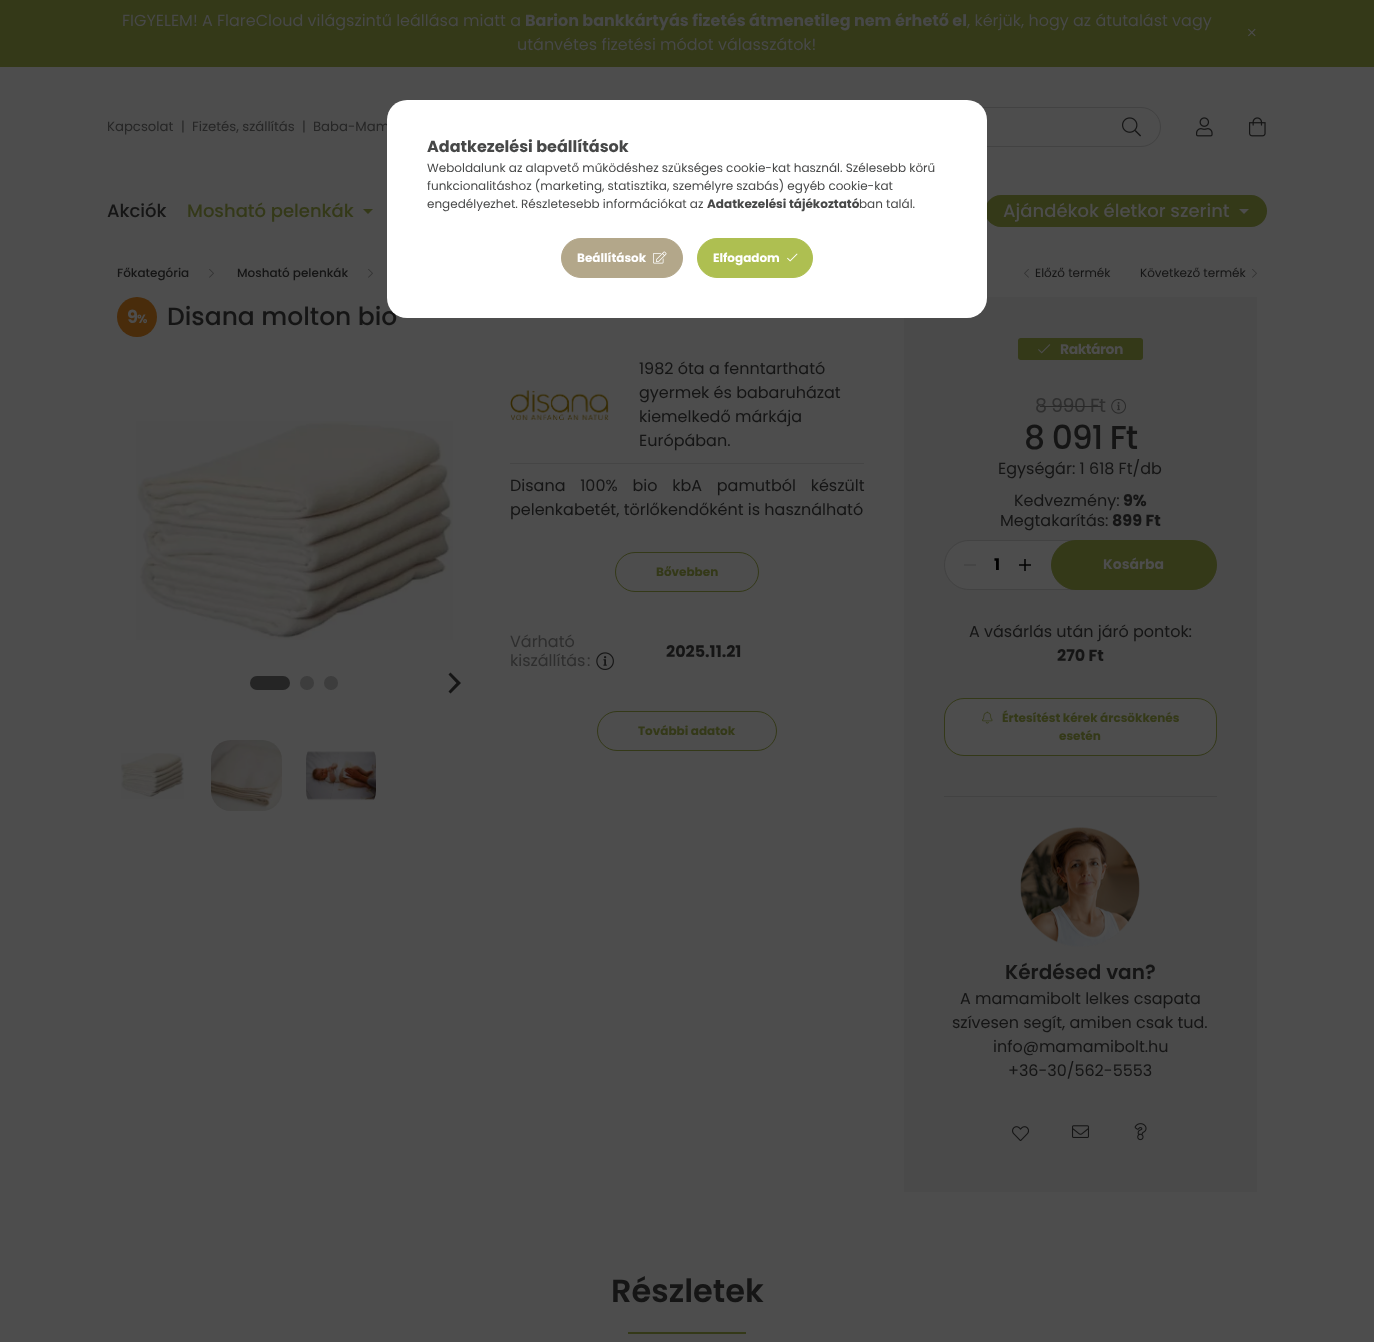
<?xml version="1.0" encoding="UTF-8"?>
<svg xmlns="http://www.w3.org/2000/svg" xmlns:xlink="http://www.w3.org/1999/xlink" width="1374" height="1342">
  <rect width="100%" height="100%" fill="#4d4d4d" />
  <rect width="1374" height="67" fill="#343918" />
  <image x="1248" y="28" width="8" height="9" xlink:href="image1.png" />
  <rect x="861.5" y="107.5" width="299" height="39" rx="19.5" fill="none" stroke="#424242" />
  <image x="1122" y="117" width="19" height="20" xlink:href="image2.png" />
  <image x="1196" y="117" width="17" height="20" xlink:href="image3.png" />
  <image x="1249" y="117" width="17" height="20" xlink:href="image4.png" />
  <path d="M 363 209 h 10 l -5 5 z" fill="#343918" />
  <rect x="985" y="195" width="282" height="32" rx="16" fill="#343918" />
  <path d="M 1239 209 h 10 l -5 5 z" fill="#4d4d4d" />
  <image x="209" y="269" width="5" height="9" xlink:href="image5.png" />
  <image x="368" y="269" width="5" height="9" xlink:href="image5.png" />
  <image x="1024" y="269" width="5" height="9" xlink:href="image6.png" />
  <image x="1252" y="269" width="5" height="9" xlink:href="image5.png" />
  <circle cx="137" cy="317" r="20" fill="#492c0b" />
  <image x="136" y="421" width="317" height="219" xlink:href="image7.png" />
  <rect x="250" y="676" width="40" height="14" rx="7" fill="#252525" />
  <circle cx="307" cy="683" r="7" fill="#3d3d3d" />
  <circle cx="331" cy="683" r="7" fill="#3d3d3d" />
  <path d="M 461 683 l -10.5 -10.5 l -2 2 l 8 8.5 l -8 8.5 l 2 2 z" fill="#151515" />
  <image x="121" y="753" width="63" height="46" xlink:href="image8.png" />
  <image x="211" y="740" width="71" height="71" xlink:href="image9.png" />
  <image x="306" y="751" width="70" height="50" xlink:href="image10.png" />
  <image x="510" y="390" width="99" height="30" xlink:href="image11.png" />
  <rect x="510" y="463" width="354" height="1" fill="#454545" />
  <rect x="615.5" y="552.5" width="143" height="39" rx="19.5" fill="none" stroke="#343918" />
  <image x="596" y="652" width="18" height="18" xlink:href="image12.png" />
  <rect x="597.5" y="711.5" width="179" height="39" rx="19.5" fill="none" stroke="#343918" />
  <rect x="904" y="297" width="353" height="895" fill="#4a4a4a" />
  <rect x="1018" y="338" width="125" height="22" rx="3" fill="#343918" />
  <image x="1038" y="344" width="13" height="10" xlink:href="image13.png" />
  <image x="1111" y="398" width="15" height="16" xlink:href="image14.png" />
  <path d="M 969 540.5 h 111.5 v 49 h -111.5 c -13.5 0 -24.5 -11 -24.5 -24.5 c 0 -13.5 11 -24.5 24.5 -24.5 z" fill="#4d4d4d" stroke="#424242" />
  <rect x="964" y="564" width="12" height="2" fill="#454545" />
  <image x="1019" y="559" width="12" height="12" xlink:href="image15.png" />
  <rect x="1051.5" y="540.5" width="165" height="49" rx="24.5" fill="#343918" stroke="#343918" />
  <rect x="944.5" y="698.5" width="272" height="57" rx="19.5" fill="#4d4d4d" stroke="#343918" />
  <image x="982" y="711" width="11" height="13" xlink:href="image16.png" />
  <rect x="944" y="796" width="273" height="1" fill="#424242" />
  <image x="1020" y="827" width="120" height="120" xlink:href="image17.png" />
  <image x="1012" y="1126" width="17" height="15" xlink:href="image18.png" />
  <image x="1072" y="1125" width="17" height="13" xlink:href="image19.png" />
  <image x="1134" y="1123" width="13" height="18" xlink:href="image20.png" />
  <rect x="628" y="1332" width="118" height="2" fill="#343918" />
  <text x="122" y="26" style="font-family: Poppins; font-size: 16px; fill: #474848">FIGYELEM! A FlareCloud világszintű leállása miatt a</text>
  <text x="525" y="26" style="font-family: Poppins; font-size: 16px; font-weight: bold; fill: #474848">Barion bankkártyás fizetés átmenetileg nem érhető el</text>
  <text x="967" y="26" style="font-family: Poppins; font-size: 16px; fill: #474848">, kérjük, hogy az átutalást vagy</text>
  <text x="517" y="50" style="font-family: Poppins; font-size: 16px; fill: #474848">utánvétes fizetési módot válasszátok!</text>
  <text x="107" y="131" style="font-family: Poppins; font-size: 13.25px; fill: #262626">Kapcsolat</text>
  <text x="181" y="131" style="font-family: Poppins; font-size: 13.25px; fill: #262626">|</text>
  <text x="192" y="131" style="font-family: Poppins; font-size: 13.25px; fill: #262626">Fizetés, szállítás</text>
  <text x="302" y="131" style="font-family: Poppins; font-size: 13.25px; fill: #262626">|</text>
  <text x="313" y="131" style="font-family: Poppins; font-size: 13.25px; fill: #262626">Baba-Mam</text>
  <text x="107" y="217" style="font-family: Poppins; font-size: 18px; font-weight: 500; fill: #151515">Akciók</text>
  <text x="187" y="217" style="font-family: Poppins; font-size: 18px; font-weight: 500; fill: #343918">Mosható pelenkák</text>
  <text x="1003" y="217" style="font-family: Poppins; font-size: 18px; font-weight: 500; fill: #4d4d4d">Ajándékok életkor szerint</text>
  <text x="117" y="277" style="font-family: Poppins; font-size: 12px; font-weight: 500; fill: #151515">Főkategória</text>
  <text x="237" y="277" style="font-family: Poppins; font-size: 12px; font-weight: 500; fill: #151515">Mosható pelenkák</text>
  <text x="1035" y="277" style="font-family: Poppins; font-size: 12px; fill: #151515">Előző termék</text>
  <text x="1140" y="277" style="font-family: Poppins; font-size: 12px; fill: #151515">Következő termék</text>
  <text x="127" y="323" style="font-family: Poppins; font-size: 18px; font-weight: bold; letter-spacing: -0.5px; fill: #4d4d4d">9</text>
  <text x="137" y="323" style="font-family: Poppins; font-size: 12px; font-weight: bold; letter-spacing: -0.5px; fill: #4d4d4d">%</text>
  <text x="167" y="325" style="font-family: Poppins; font-size: 25px; font-weight: 500; fill: #151515">Disana molton bio</text>
  <text x="639" y="374" style="font-family: Poppins; font-size: 16px; fill: #151515">1982 óta a fenntartható</text>
  <text x="639" y="398" style="font-family: Poppins; font-size: 16px; fill: #151515">gyermek és babaruházat</text>
  <text x="639" y="422" style="font-family: Poppins; font-size: 16px; fill: #151515">kiemelkedő márkája</text>
  <text x="639" y="446" style="font-family: Poppins; font-size: 16px; fill: #151515">Európában.</text>
  <text x="510" y="491" word-spacing="10.5" style="font-family: Poppins; font-size: 16px; fill: #151515">Disana 100% bio kbA pamutból készült</text>
  <text x="510" y="515" style="font-family: Poppins; font-size: 16px; fill: #151515">pelenkabetét, törlőkendőként is használható</text>
  <text x="656" y="576" style="font-family: Poppins; font-size: 12px; font-weight: bold; fill: #343918">Bővebben</text>
  <text x="510" y="647" style="font-family: Poppins; font-size: 16px; fill: #2e2e2e">Várható</text>
  <text x="510" y="666" style="font-family: Poppins; font-size: 16px; fill: #2e2e2e">kiszállítás</text>
  <text x="587" y="666" style="font-family: Poppins; font-size: 16px; fill: #2e2e2e">:</text>
  <text x="666" y="657" style="font-family: Poppins; font-size: 16px; font-weight: bold; fill: #151515">2025.11.21</text>
  <text x="638" y="735" style="font-family: Poppins; font-size: 12px; font-weight: bold; fill: #343918">További adatok</text>
  <text x="1060" y="354" style="font-family: Poppins; font-size: 14px; font-weight: bold; letter-spacing: -0.5px; fill: #4d4d4d">Raktáron</text>
  <text x="1035" y="412" style="font-family: Poppins; font-size: 19px; letter-spacing: -0.5px; fill: #2e2e2e">8 990 Ft</text>
  <rect x="1040" y="406" width="61" height="1" fill="#292929" />
  <text x="1024" y="449" style="font-family: Poppins; font-size: 33px; font-weight: 500; letter-spacing: -1px; fill: #151515">8 091 Ft</text>
  <text x="998" y="474" style="font-family: Poppins; font-size: 16px; fill: #151515">Egységár: 1 618 Ft/db</text>
  <text x="1014" y="506" style="font-family: Poppins; font-size: 16px; fill: #151515">Kedvezmény:</text>
  <text x="1123" y="506" style="font-family: Poppins; font-size: 16px; font-weight: bold; fill: #151515">9%</text>
  <text x="1000" y="526" style="font-family: Poppins; font-size: 16px; fill: #151515">Megtakarítás:</text>
  <text x="1112" y="526" style="font-family: Poppins; font-size: 16px; font-weight: bold; fill: #151515">899 Ft</text>
  <text x="994" y="570" style="font-family: Poppins; font-size: 16px; font-weight: bold; fill: #000000">1</text>
  <text x="1103" y="569" style="font-family: Poppins; font-size: 14px; font-weight: bold; fill: #4d4d4d">Kosárba</text>
  <text x="969" y="637" style="font-family: Poppins; font-size: 16px; fill: #151515">A vásárlás után járó pontok:</text>
  <text x="1057" y="661" style="font-family: Poppins; font-size: 16px; font-weight: bold; fill: #151515">270 Ft</text>
  <text x="1002" y="722" style="font-family: Poppins; font-size: 12px; font-weight: bold; fill: #343918">Értesítést kérek árcsökkenés</text>
  <text x="1059" y="740" style="font-family: Poppins; font-size: 12px; font-weight: bold; fill: #343918">esetén</text>
  <text x="1005" y="979" style="font-family: Poppins; font-size: 20px; font-weight: 600; fill: #151515">Kérdésed van?</text>
  <text x="960" y="1004" style="font-family: Poppins; font-size: 16px; fill: #151515">A mamamibolt lelkes csapata</text>
  <text x="952" y="1028" style="font-family: Poppins; font-size: 16px; fill: #151515">szívesen segít, amiben csak tud.</text>
  <text x="993" y="1052" style="font-family: Poppins; font-size: 16px; fill: #151515">info@mamamibolt.hu</text>
  <text x="1008" y="1076" style="font-family: Poppins; font-size: 16px; fill: #151515">+36-30/562-5553</text>
  <text x="611" y="1302" style="font-family: Poppins; font-size: 32px; font-weight: 600; fill: #151515">Részletek</text>
  <rect x="387" y="100" width="600" height="218" rx="20" fill="#ffffff" />
  <text x="427" y="152" style="font-family: Poppins; font-size: 16px; font-weight: bold; fill: #474848">Adatkezelési beállítások</text>
  <text x="427" y="172" style="font-family: Poppins; font-size: 12px; fill: #474848">Weboldalunk az alapvető működéshez szükséges cookie-kat használ. Szélesebb körű</text>
  <text x="427" y="190" style="font-family: Poppins; font-size: 12px; fill: #474848">funkcionalitáshoz (marketing, statisztika, személyre szabás) egyéb cookie-kat</text>
  <text x="427" y="208" style="font-family: Poppins; font-size: 12px; fill: #474848">engedélyezhet. Részletesebb információkat az</text>
  <text x="707" y="208" style="font-family: Poppins; font-size: 12px; font-weight: bold; fill: #474848">Adatkezelési tájékoztató</text>
  <text x="859" y="208" style="font-family: Poppins; font-size: 12px; fill: #474848">ban talál.</text>
  <rect x="561.5" y="238.5" width="121" height="39" rx="19.5" fill="#b3a78a" stroke="#b3a78a" />
  <text x="577" y="262" style="font-family: Poppins; font-size: 12px; font-weight: bold; fill: #ffffff">Beállítások</text>
  <image x="653" y="251" width="14" height="13" xlink:href="image21.png" />
  <rect x="697.5" y="238.5" width="115" height="39" rx="19.5" fill="#aebf51" stroke="#aebf51" />
  <text x="713" y="262" style="font-family: Poppins; font-size: 12px; font-weight: bold; fill: #ffffff">Elfogadom</text>
  <image x="787" y="253" width="11" height="9" xlink:href="image22.png" />
</svg>
